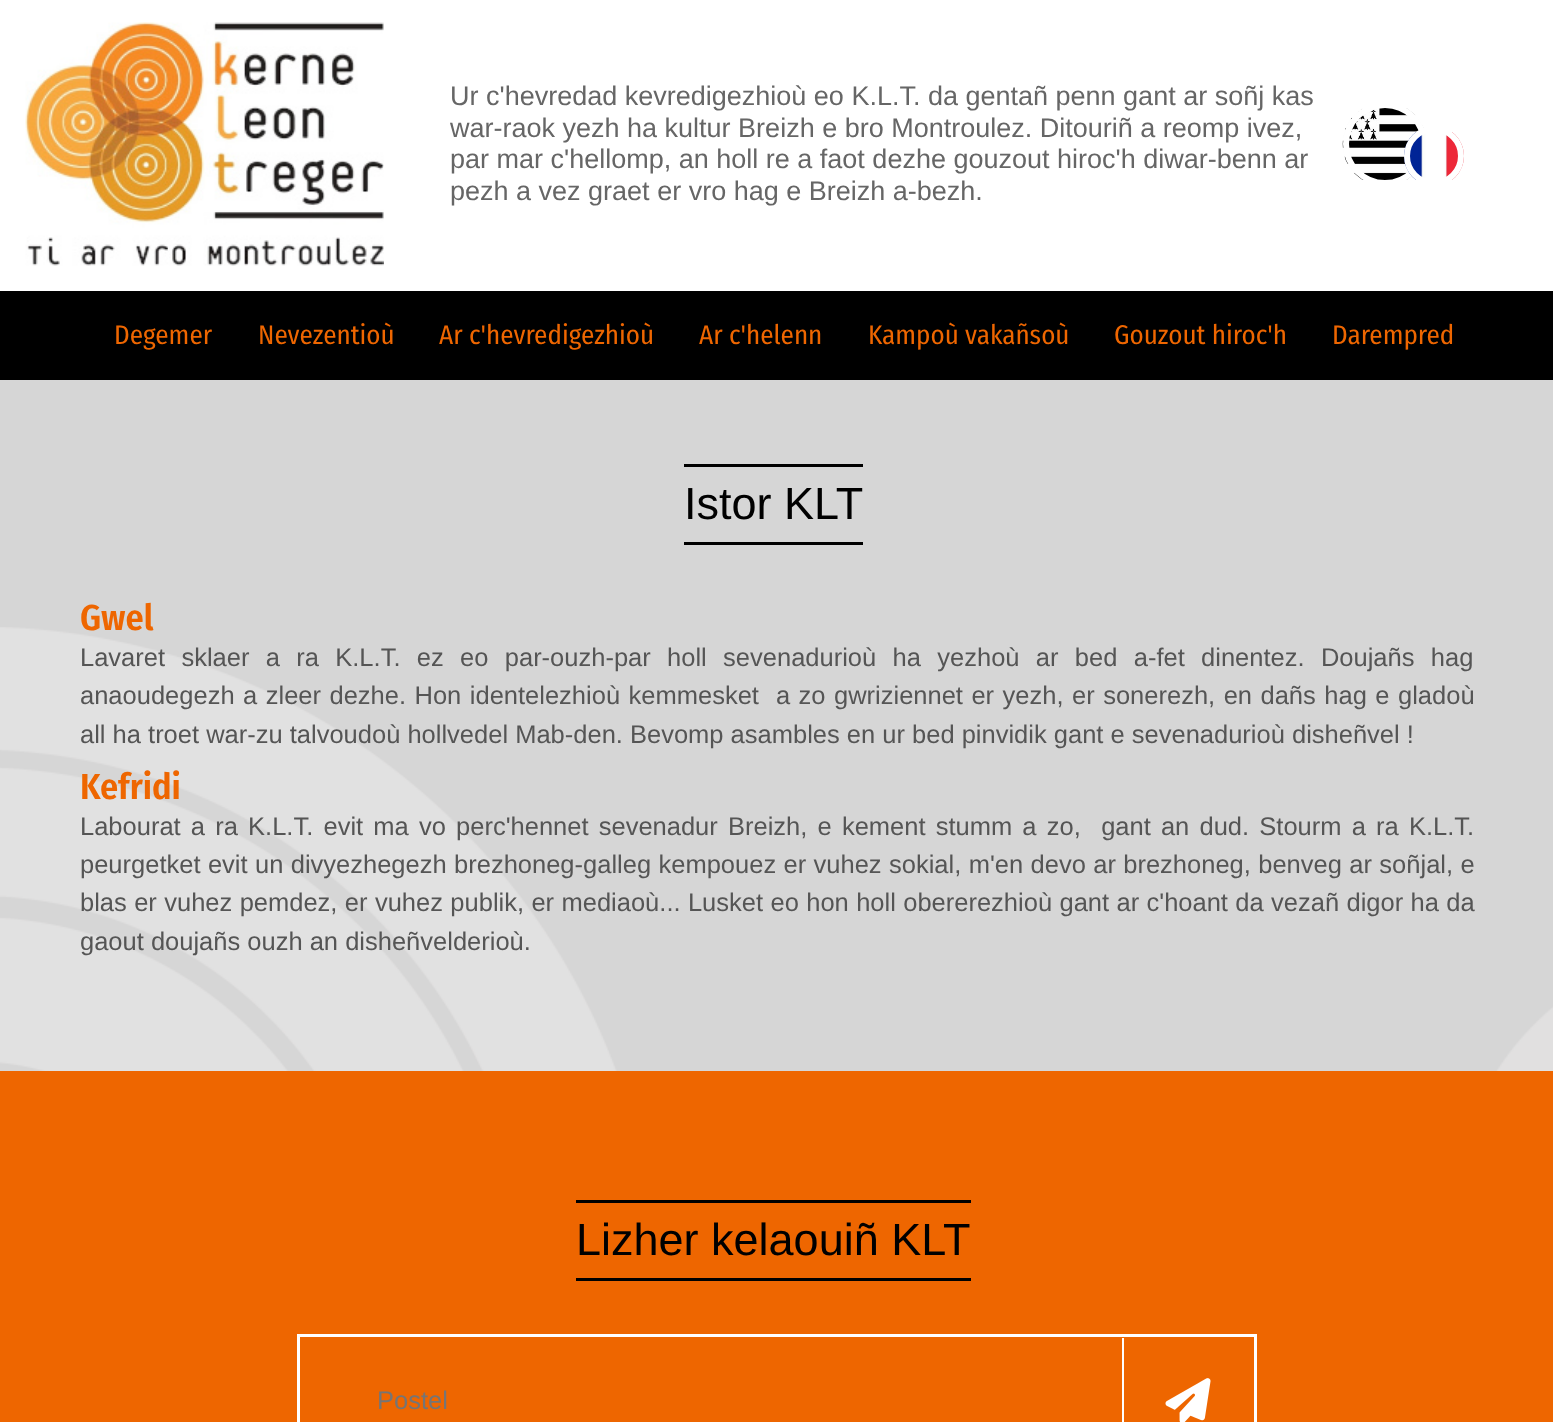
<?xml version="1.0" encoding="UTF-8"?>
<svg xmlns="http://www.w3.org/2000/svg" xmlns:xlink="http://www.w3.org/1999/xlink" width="1553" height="1422">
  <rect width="100%" height="100%" fill="#d6d6d6" />
  <image x="0" y="627" width="1553" height="444" xlink:href="image1.png" />
  <rect width="1553" height="291" fill="#ffffff" />
  <image x="25" y="22" width="359" height="244" xlink:href="image2.png" />
  <image x="1342" y="108" width="82" height="72" xlink:href="image3.png" />
  <circle cx="1385" cy="144" r="39" fill="none" stroke="#ffffff" stroke-width="6" />
  <image x="1404" y="132" width="60" height="48" xlink:href="image4.png" />
  <circle cx="1434" cy="156" r="27" fill="none" stroke="#ffffff" stroke-width="6" />
  <rect y="291" width="1553" height="89" fill="#000000" />
  <rect x="684" y="464" width="179" height="3" fill="#000000" />
  <rect x="684" y="542" width="179" height="3" fill="#000000" />
  <rect y="1071" width="1553" height="351" fill="#ee6600" />
  <rect x="576" y="1200" width="395" height="3" fill="#000000" />
  <rect x="576" y="1278" width="395" height="3" fill="#000000" />
  <rect x="298.5" y="1335.5" width="957" height="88" fill="none" stroke="#ffffff" stroke-width="3" />
  <rect x="1122" y="1338" width="2" height="84" fill="#ffffff" />
  <image x="1165" y="1378" width="46" height="44" xlink:href="image5.png" />
  <text x="450" y="105" style="font-family: Liberation Sans; font-size: 27px; fill: #666666">Ur c'hevredad kevredigezhioù eo K.L.T. da gentañ penn gant ar soñj kas</text>
  <text x="450" y="137" style="font-family: Liberation Sans; font-size: 27px; fill: #666666">war-raok yezh ha kultur Breizh e bro Montroulez. Ditouriñ a reomp ivez,</text>
  <text x="450" y="168" style="font-family: Liberation Sans; font-size: 27px; fill: #666666">par mar c'hellomp, an holl re a faot dezhe gouzout hiroc'h diwar-benn ar</text>
  <text x="450" y="200" style="font-family: Liberation Sans; font-size: 27px; fill: #666666">pezh a vez graet er vro hag e Breizh a-bezh.</text>
  <text x="114" y="344" style="font-family: Fira Sans Condensed; font-size: 27px; fill: #ee6600">Degemer</text>
  <text x="258" y="344" style="font-family: Fira Sans Condensed; font-size: 27px; fill: #ee6600">Nevezentioù</text>
  <text x="439" y="344" style="font-family: Fira Sans Condensed; font-size: 27px; fill: #ee6600">Ar c'hevredigezhioù</text>
  <text x="699" y="344" style="font-family: Fira Sans Condensed; font-size: 27px; fill: #ee6600">Ar c'helenn</text>
  <text x="868" y="344" style="font-family: Fira Sans Condensed; font-size: 27px; fill: #ee6600">Kampoù vakañsoù</text>
  <text x="1114" y="344" style="font-family: Fira Sans Condensed; font-size: 27px; fill: #ee6600">Gouzout hiroc'h</text>
  <text x="1332" y="344" style="font-family: Fira Sans Condensed; font-size: 27px; fill: #ee6600">Darempred</text>
  <text x="684" y="519" style="font-family: Liberation Sans; font-size: 45px; fill: #000000">Istor KLT</text>
  <text x="80" y="630" style="font-family: Fira Sans Condensed; font-size: 36px; font-weight: 600; fill: #ee6600">Gwel</text>
  <text x="80" y="666" word-spacing="9.25" style="font-family: Liberation Sans; font-size: 25.5px; fill: #555555">Lavaret sklaer a ra K.L.T. ez eo par-ouzh-par holl sevenadurioù ha yezhoù ar bed a-fet dinentez. Doujañs hag</text>
  <text x="80" y="704" word-spacing="1.4" style="font-family: Liberation Sans; font-size: 25.5px; fill: #555555" xml:space="preserve">anaoudegezh a zleer dezhe. Hon identelezhioù kemmesket  a zo gwriziennet er yezh, er sonerezh, en dañs hag e gladoù</text>
  <text x="80" y="743" style="font-family: Liberation Sans; font-size: 25.5px; fill: #555555">all ha troet war-zu talvoudoù hollvedel Mab-den. Bevomp asambles en ur bed pinvidik gant e sevenadurioù disheñvel !</text>
  <text x="80" y="799" style="font-family: Fira Sans Condensed; font-size: 36px; font-weight: 600; fill: #ee6600">Kefridi</text>
  <text x="80" y="835" word-spacing="3.1" style="font-family: Liberation Sans; font-size: 25.5px; fill: #555555" xml:space="preserve">Labourat a ra K.L.T. evit ma vo perc'hennet sevenadur Breizh, e kement stumm a zo,  gant an dud. Stourm a ra K.L.T.</text>
  <text x="80" y="873" word-spacing="0.3" style="font-family: Liberation Sans; font-size: 25.5px; fill: #555555">peurgetket evit un divyezhegezh brezhoneg-galleg kempouez er vuhez sokial, m'en devo ar brezhoneg, benveg ar soñjal, e</text>
  <text x="80" y="911" word-spacing="0.3" style="font-family: Liberation Sans; font-size: 25.5px; fill: #555555">blas er vuhez pemdez, er vuhez publik, er mediaoù... Lusket eo hon holl obererezhioù gant ar c'hoant da vezañ digor ha da</text>
  <text x="80" y="950" style="font-family: Liberation Sans; font-size: 25.5px; fill: #555555">gaout doujañs ouzh an disheñvelderioù.</text>
  <text x="576" y="1255" style="font-family: Liberation Sans; font-size: 45px; fill: #000000">Lizher kelaouiñ KLT</text>
  <text x="377" y="1409" style="font-family: Liberation Sans; font-size: 25.5px; fill: #757575">Postel</text>
</svg>
